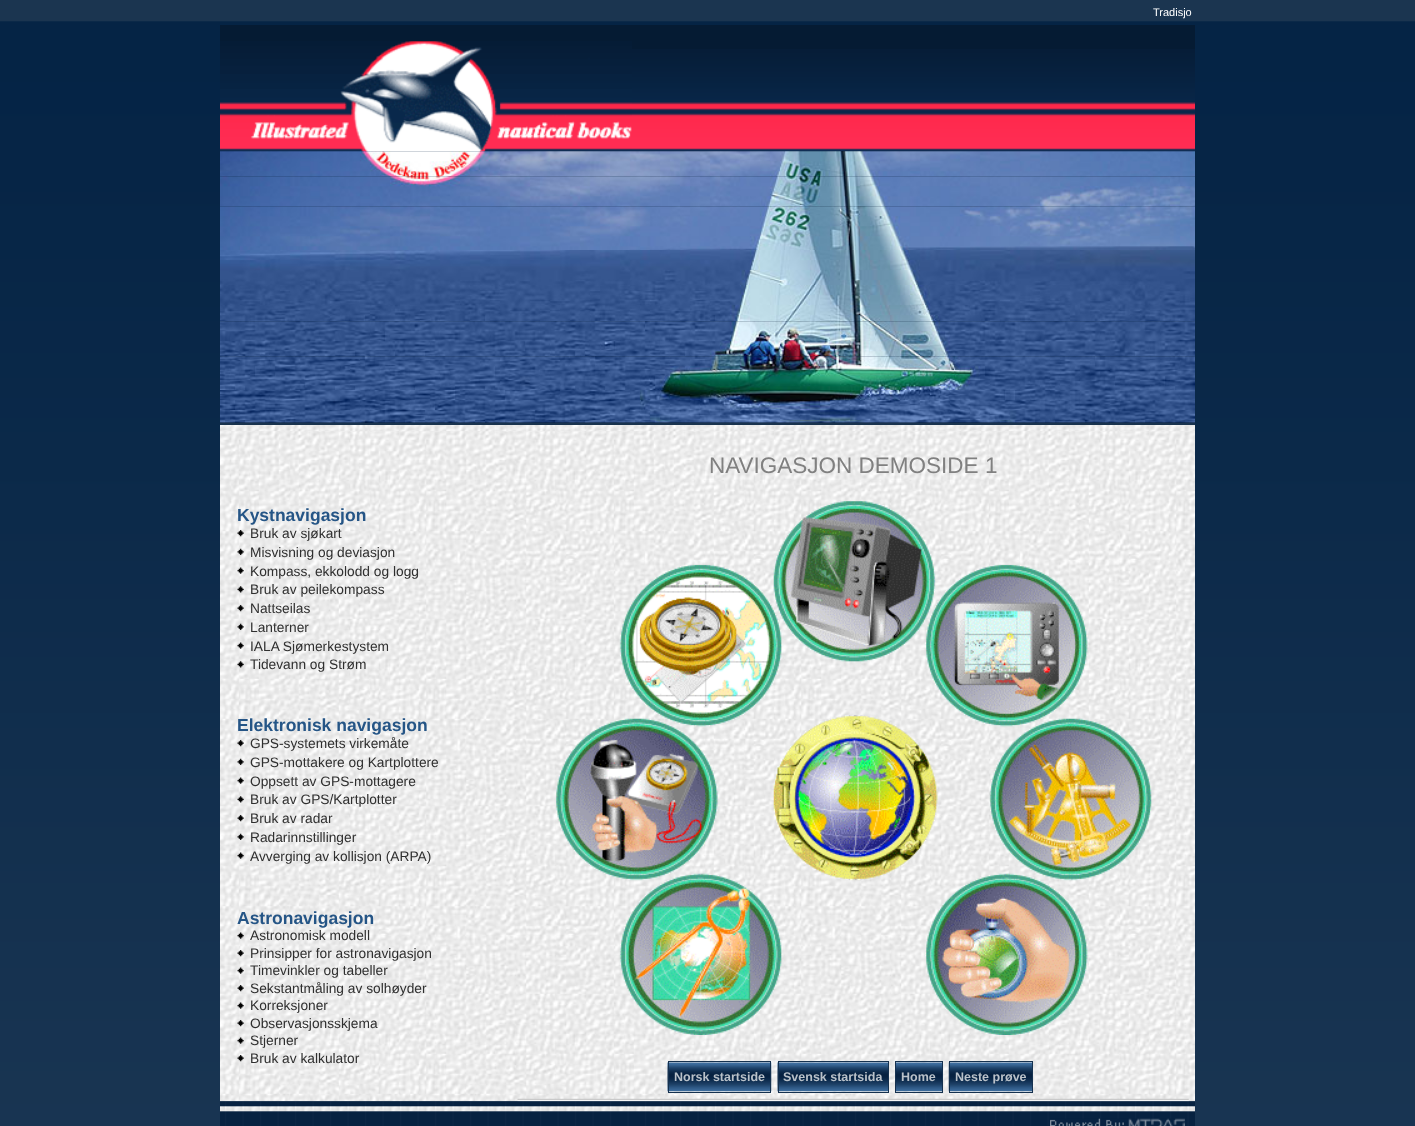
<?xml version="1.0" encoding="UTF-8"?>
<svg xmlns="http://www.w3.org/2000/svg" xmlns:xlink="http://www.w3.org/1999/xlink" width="1415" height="1126">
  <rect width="100%" height="100%" fill="#ffffff" />
  <image x="0" y="0" width="1415" height="1126" xlink:href="image1.png" />
  <rect x="220" y="25" width="975" height="398" fill="#051b33" />
  <image x="220" y="431" width="975" height="671" xlink:href="image2.png" />
  <image x="220" y="49" width="975" height="103" xlink:href="image3.png" />
  <image x="220" y="41" width="412" height="111" xlink:href="image4.png" />
  <image x="220" y="151" width="975" height="26" xlink:href="image5.png" />
  <image x="220" y="176" width="975" height="31" xlink:href="image6.png" />
  <image x="220" y="206" width="975" height="44" xlink:href="image7.png" />
  <image x="220" y="250" width="975" height="35" xlink:href="image8.png" />
  <image x="220" y="285" width="975" height="37" xlink:href="image9.png" />
  <image x="220" y="321" width="975" height="36" xlink:href="image10.png" />
  <image x="220" y="356" width="975" height="34" xlink:href="image11.png" />
  <image x="220" y="390" width="975" height="33" xlink:href="image12.png" />
  <rect x="220" y="423" width="975" height="2" fill="#19334e" />
  <image x="220" y="425" width="975" height="7" xlink:href="image13.png" />
  <image x="220" y="431" width="975" height="671" xlink:href="image14.png" />
  <image x="237" y="530" width="7" height="7" xlink:href="image15.png" />
  <image x="237" y="548" width="7" height="7" xlink:href="image16.png" />
  <image x="237" y="567" width="7" height="7" xlink:href="image17.png" />
  <image x="237" y="586" width="7" height="7" xlink:href="image18.png" />
  <image x="237" y="605" width="7" height="7" xlink:href="image19.png" />
  <image x="237" y="623" width="7" height="7" xlink:href="image20.png" />
  <image x="237" y="642" width="7" height="7" xlink:href="image21.png" />
  <image x="237" y="661" width="7" height="7" xlink:href="image22.png" />
  <image x="237" y="740" width="7" height="7" xlink:href="image23.png" />
  <image x="237" y="758" width="7" height="7" xlink:href="image24.png" />
  <image x="237" y="777" width="7" height="7" xlink:href="image25.png" />
  <image x="237" y="796" width="7" height="7" xlink:href="image26.png" />
  <image x="237" y="815" width="7" height="7" xlink:href="image27.png" />
  <image x="237" y="833" width="7" height="7" xlink:href="image28.png" />
  <image x="237" y="852" width="7" height="7" xlink:href="image29.png" />
  <image x="237" y="932" width="7" height="7" xlink:href="image30.png" />
  <image x="237" y="950" width="7" height="7" xlink:href="image31.png" />
  <image x="237" y="967" width="7" height="7" xlink:href="image32.png" />
  <image x="237" y="985" width="7" height="7" xlink:href="image33.png" />
  <image x="237" y="1002" width="7" height="7" xlink:href="image34.png" />
  <image x="237" y="1020" width="7" height="7" xlink:href="image35.png" />
  <image x="237" y="1037" width="7" height="7" xlink:href="image36.png" />
  <image x="237" y="1055" width="7" height="7" xlink:href="image37.png" />
  <image x="556" y="501" width="596" height="534" xlink:href="image38.png" />
  <image x="667" y="1062" width="105" height="30" xlink:href="image39.png" />
  <rect x="668.5" y="1061.5" width="102" height="31" fill="none" stroke="#15314f" />
  <image x="777" y="1062" width="111" height="30" xlink:href="image40.png" />
  <rect x="778.5" y="1061.5" width="110" height="31" fill="none" stroke="#15314f" />
  <image x="896" y="1062" width="46" height="30" xlink:href="image41.png" />
  <rect x="895.5" y="1061.5" width="47" height="31" fill="none" stroke="#15314f" />
  <image x="948" y="1062" width="84" height="30" xlink:href="image42.png" />
  <rect x="949.5" y="1061.5" width="83" height="31" fill="none" stroke="#15314f" />
  <image x="517" y="1098" width="672" height="4" xlink:href="image43.png" />
  <image x="220" y="1101" width="975" height="25" xlink:href="image44.png" />
  <image x="1050" y="1118" width="135" height="8" xlink:href="image45.png" />
  <text x="1153" y="16" style="font-family: Liberation Sans; font-size: 11px; fill: #ffffff">Tradisjo</text>
  <text x="237" y="521" style="font-family: Liberation Sans; font-size: 17.5px; font-weight: bold; fill: #255586">Kystnavigasjon</text>
  <text x="250" y="538" style="font-family: Liberation Sans; font-size: 13.75px; fill: #2f2f2f">Bruk av sjøkart</text>
  <text x="250" y="557" style="font-family: Liberation Sans; font-size: 13.75px; fill: #2f2f2f">Misvisning og deviasjon</text>
  <text x="250" y="576" style="font-family: Liberation Sans; font-size: 13.75px; fill: #2f2f2f">Kompass, ekkolodd og logg</text>
  <text x="250" y="594" style="font-family: Liberation Sans; font-size: 13.75px; fill: #2f2f2f">Bruk av peilekompass</text>
  <text x="250" y="613" style="font-family: Liberation Sans; font-size: 13.75px; fill: #2f2f2f">Nattseilas</text>
  <text x="250" y="632" style="font-family: Liberation Sans; font-size: 13.75px; fill: #2f2f2f">Lanterner</text>
  <text x="250" y="651" style="font-family: Liberation Sans; font-size: 13.75px; fill: #2f2f2f">IALA Sjømerkestystem</text>
  <text x="250" y="669" style="font-family: Liberation Sans; font-size: 13.75px; fill: #2f2f2f">Tidevann og Strøm</text>
  <text x="237" y="731" style="font-family: Liberation Sans; font-size: 17.5px; font-weight: bold; fill: #255586">Elektronisk navigasjon</text>
  <text x="250" y="748" style="font-family: Liberation Sans; font-size: 13.75px; fill: #2f2f2f">GPS-systemets virkemåte</text>
  <text x="250" y="767" style="font-family: Liberation Sans; font-size: 13.75px; fill: #2f2f2f">GPS-mottakere og Kartplottere</text>
  <text x="250" y="786" style="font-family: Liberation Sans; font-size: 13.75px; fill: #2f2f2f">Oppsett av GPS-mottagere</text>
  <text x="250" y="804" style="font-family: Liberation Sans; font-size: 13.75px; fill: #2f2f2f">Bruk av GPS/Kartplotter</text>
  <text x="250" y="823" style="font-family: Liberation Sans; font-size: 13.75px; fill: #2f2f2f">Bruk av radar</text>
  <text x="250" y="842" style="font-family: Liberation Sans; font-size: 13.75px; fill: #2f2f2f">Radarinnstillinger</text>
  <text x="250" y="861" style="font-family: Liberation Sans; font-size: 13.75px; fill: #2f2f2f">Avverging av kollisjon (ARPA)</text>
  <text x="237" y="924" style="font-family: Liberation Sans; font-size: 17.5px; font-weight: bold; fill: #255586">Astronavigasjon</text>
  <text x="250" y="940" style="font-family: Liberation Sans; font-size: 13.75px; fill: #2f2f2f">Astronomisk modell</text>
  <text x="250" y="958" style="font-family: Liberation Sans; font-size: 13.75px; fill: #2f2f2f">Prinsipper for astronavigasjon</text>
  <text x="250" y="975" style="font-family: Liberation Sans; font-size: 13.75px; fill: #2f2f2f">Timevinkler og tabeller</text>
  <text x="250" y="993" style="font-family: Liberation Sans; font-size: 13.75px; fill: #2f2f2f">Sekstantmåling av solhøyder</text>
  <text x="250" y="1010" style="font-family: Liberation Sans; font-size: 13.75px; fill: #2f2f2f">Korreksjoner</text>
  <text x="250" y="1028" style="font-family: Liberation Sans; font-size: 13.75px; fill: #2f2f2f">Observasjonsskjema</text>
  <text x="250" y="1045" style="font-family: Liberation Sans; font-size: 13.75px; fill: #2f2f2f">Stjerner</text>
  <text x="250" y="1063" style="font-family: Liberation Sans; font-size: 13.75px; fill: #2f2f2f">Bruk av kalkulator</text>
  <text x="709" y="473" style="font-family: Liberation Sans; font-size: 22.5px; fill: #808080">NAVIGASJON DEMOSIDE 1</text>
  <text x="674" y="1081" style="font-family: Liberation Sans; font-size: 12.5px; font-weight: bold; fill: #bac2ca">Norsk startside</text>
  <text x="783" y="1081" style="font-family: Liberation Sans; font-size: 12.5px; font-weight: bold; fill: #bac2ca">Svensk startsida</text>
  <text x="901" y="1081" style="font-family: Liberation Sans; font-size: 12.5px; font-weight: bold; fill: #bac2ca">Home</text>
  <text x="955" y="1081" style="font-family: Liberation Sans; font-size: 12.5px; font-weight: bold; fill: #bac2ca">Neste prøve</text>
</svg>
